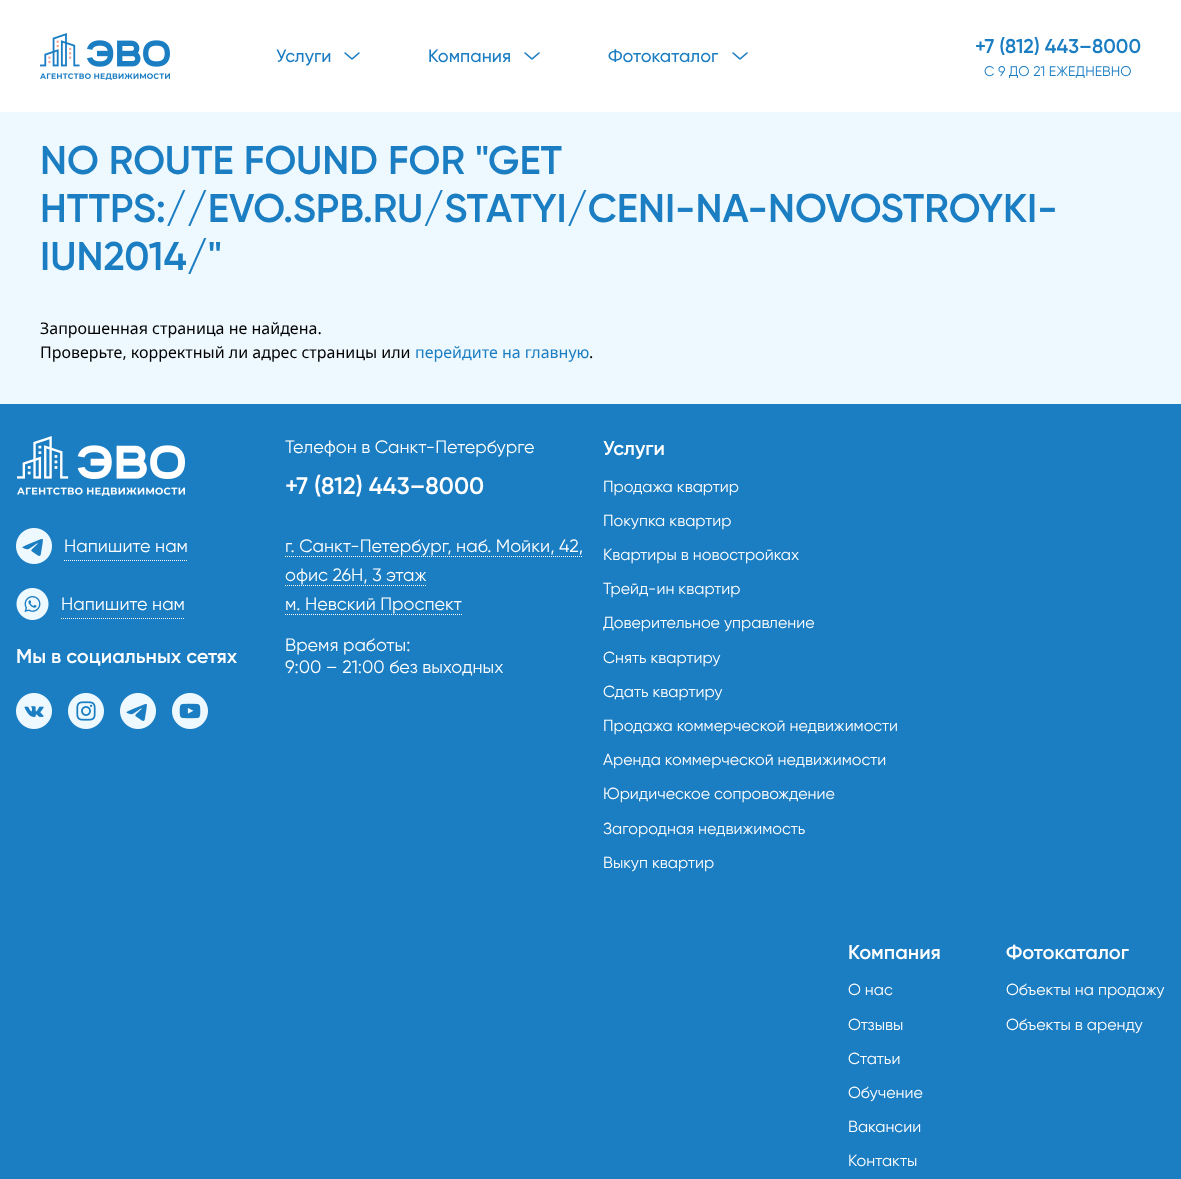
<?xml version="1.0" encoding="UTF-8"?>
<svg xmlns="http://www.w3.org/2000/svg" xmlns:xlink="http://www.w3.org/1999/xlink" width="1181" height="1179">
  <rect width="100%" height="100%" fill="#eef9ff" />
  <rect width="1181" height="112" fill="#ffffff" />
  <image x="40" y="33" width="130" height="47" xlink:href="image1.png" />
  <image x="344" y="52" width="16" height="8" xlink:href="image2.png" />
  <image x="524" y="52" width="16" height="8" xlink:href="image2.png" />
  <image x="732" y="52" width="16" height="8" xlink:href="image2.png" />
  <rect y="404" width="1181" height="775" fill="#1b7dc2" />
  <image x="17" y="436" width="168" height="60" xlink:href="image3.png" />
  <image x="16" y="528" width="36" height="36" xlink:href="image4.png" />
  <path d="M 64 560.5 h 124" fill="none" stroke="#ffffff" stroke-dasharray="1 1" />
  <image x="16" y="588" width="33" height="32" xlink:href="image5.png" />
  <path d="M 61 618.5 h 124" fill="none" stroke="#ffffff" stroke-dasharray="1 1" />
  <image x="16" y="693" width="36" height="36" xlink:href="image6.png" />
  <image x="68" y="693" width="36" height="36" xlink:href="image7.png" />
  <image x="120" y="693" width="36" height="36" xlink:href="image4.png" />
  <image x="172" y="693" width="36" height="36" xlink:href="image8.png" />
  <path d="M 285 556.5 h 298" fill="none" stroke="#ffffff" stroke-dasharray="1 1" />
  <path d="M 285 585.5 h 142" fill="none" stroke="#ffffff" stroke-dasharray="1 1" />
  <path d="M 285 614.5 h 177" fill="none" stroke="#ffffff" stroke-dasharray="1 1" />
  <text x="276" y="62" style="font-family: Gilroy; font-size: 18px; font-weight: 500; fill: #1b7dc2">Услуги</text>
  <text x="428" y="62" style="font-family: Gilroy; font-size: 18px; font-weight: 500; fill: #1b7dc2">Компания</text>
  <text x="608" y="62" style="font-family: Gilroy; font-size: 18px; font-weight: 500; fill: #1b7dc2">Фотокаталог</text>
  <text x="975" y="53" style="font-family: Gilroy; font-size: 20px; font-weight: 600; fill: #1b7dc2">+7 (812) 443–8000</text>
  <text x="984" y="76" style="font-family: Gilroy; font-size: 14px; fill: #1b7dc2">С 9 ДО 21 ЕЖЕДНЕВНО</text>
  <text x="40" y="174" style="font-family: Gilroy; font-size: 40px; font-weight: 600; fill: #1b7dc2">NO ROUTE FOUND FOR "GET</text>
  <text x="40" y="222" style="font-family: Gilroy; font-size: 40px; font-weight: 600; fill: #1b7dc2">HTTPS://EVO.SPB.RU/STATYI/CENI-NA-NOVOSTROYKI-</text>
  <text x="40" y="270" style="font-family: Gilroy; font-size: 40px; font-weight: 600; fill: #1b7dc2">IUN2014/"</text>
  <text x="40" y="334" style="font-family: Noto Sans; font-size: 16px; fill: #000000">Запрошенная страница не найдена.</text>
  <text x="40" y="358" style="font-family: Noto Sans; font-size: 16px; fill: #000000">Проверьте, корректный ли адрес страницы или</text>
  <text x="415" y="358" style="font-family: Noto Sans; font-size: 16px; fill: #1b7dc2">перейдите на главную</text>
  <text x="589" y="358" style="font-family: Noto Sans; font-size: 16px; fill: #000000">.</text>
  <text x="64" y="552" style="font-family: Gilroy; font-size: 18px; fill: #ffffff">Напишите нам</text>
  <text x="61" y="610" style="font-family: Gilroy; font-size: 18px; fill: #ffffff">Напишите нам</text>
  <text x="16" y="663" style="font-family: Gilroy; font-size: 20px; font-weight: 600; fill: #ffffff">Мы в социальных сетях</text>
  <text x="285" y="453" style="font-family: Gilroy; font-size: 18px; fill: #ffffff">Телефон в Санкт-Петербурге</text>
  <text x="285" y="494" style="font-family: Gilroy; font-size: 24px; font-weight: 600; fill: #ffffff">+7 (812) 443–8000</text>
  <text x="285" y="552" style="font-family: Gilroy; font-size: 18px; fill: #ffffff">г. Санкт-Петербург, наб. Мойки, 42,</text>
  <text x="285" y="581" style="font-family: Gilroy; font-size: 18px; fill: #ffffff">офис 26Н, 3 этаж</text>
  <text x="285" y="610" style="font-family: Gilroy; font-size: 18px; fill: #ffffff">м. Невский Проспект</text>
  <text x="285" y="651" style="font-family: Gilroy; font-size: 18px; fill: #ffffff">Время работы:</text>
  <text x="285" y="673" style="font-family: Gilroy; font-size: 18px; fill: #ffffff">9:00 – 21:00 без выходных</text>
  <text x="603" y="455" style="font-family: Gilroy; font-size: 20px; font-weight: 600; fill: #ffffff">Услуги</text>
  <text x="603" y="492" style="font-family: Gilroy; font-size: 16px; fill: #ffffff">Продажа квартир</text>
  <text x="603" y="526" style="font-family: Gilroy; font-size: 16px; fill: #ffffff">Покупка квартир</text>
  <text x="603" y="560" style="font-family: Gilroy; font-size: 16px; fill: #ffffff">Квартиры в новостройках</text>
  <text x="603" y="594" style="font-family: Gilroy; font-size: 16px; fill: #ffffff">Трейд-ин квартир</text>
  <text x="603" y="628" style="font-family: Gilroy; font-size: 16px; fill: #ffffff">Доверительное управление</text>
  <text x="603" y="663" style="font-family: Gilroy; font-size: 16px; fill: #ffffff">Снять квартиру</text>
  <text x="603" y="697" style="font-family: Gilroy; font-size: 16px; fill: #ffffff">Сдать квартиру</text>
  <text x="603" y="731" style="font-family: Gilroy; font-size: 16px; fill: #ffffff">Продажа коммерческой недвижимости</text>
  <text x="603" y="765" style="font-family: Gilroy; font-size: 16px; fill: #ffffff">Аренда коммерческой недвижимости</text>
  <text x="603" y="799" style="font-family: Gilroy; font-size: 16px; fill: #ffffff">Юридическое сопровождение</text>
  <text x="603" y="834" style="font-family: Gilroy; font-size: 16px; fill: #ffffff">Загородная недвижимость</text>
  <text x="603" y="868" style="font-family: Gilroy; font-size: 16px; fill: #ffffff">Выкуп квартир</text>
  <text x="848" y="959" style="font-family: Gilroy; font-size: 20px; font-weight: 600; fill: #ffffff">Компания</text>
  <text x="848" y="995" style="font-family: Gilroy; font-size: 16px; fill: #ffffff">О нас</text>
  <text x="848" y="1030" style="font-family: Gilroy; font-size: 16px; fill: #ffffff">Отзывы</text>
  <text x="848" y="1064" style="font-family: Gilroy; font-size: 16px; fill: #ffffff">Статьи</text>
  <text x="848" y="1098" style="font-family: Gilroy; font-size: 16px; fill: #ffffff">Обучение</text>
  <text x="848" y="1132" style="font-family: Gilroy; font-size: 16px; fill: #ffffff">Вакансии</text>
  <text x="848" y="1166" style="font-family: Gilroy; font-size: 16px; fill: #ffffff">Контакты</text>
  <text x="1006" y="959" style="font-family: Gilroy; font-size: 20px; font-weight: 600; fill: #ffffff">Фотокаталог</text>
  <text x="1006" y="995" style="font-family: Gilroy; font-size: 16px; fill: #ffffff">Объекты на продажу</text>
  <text x="1006" y="1030" style="font-family: Gilroy; font-size: 16px; fill: #ffffff">Объекты в аренду</text>
</svg>
